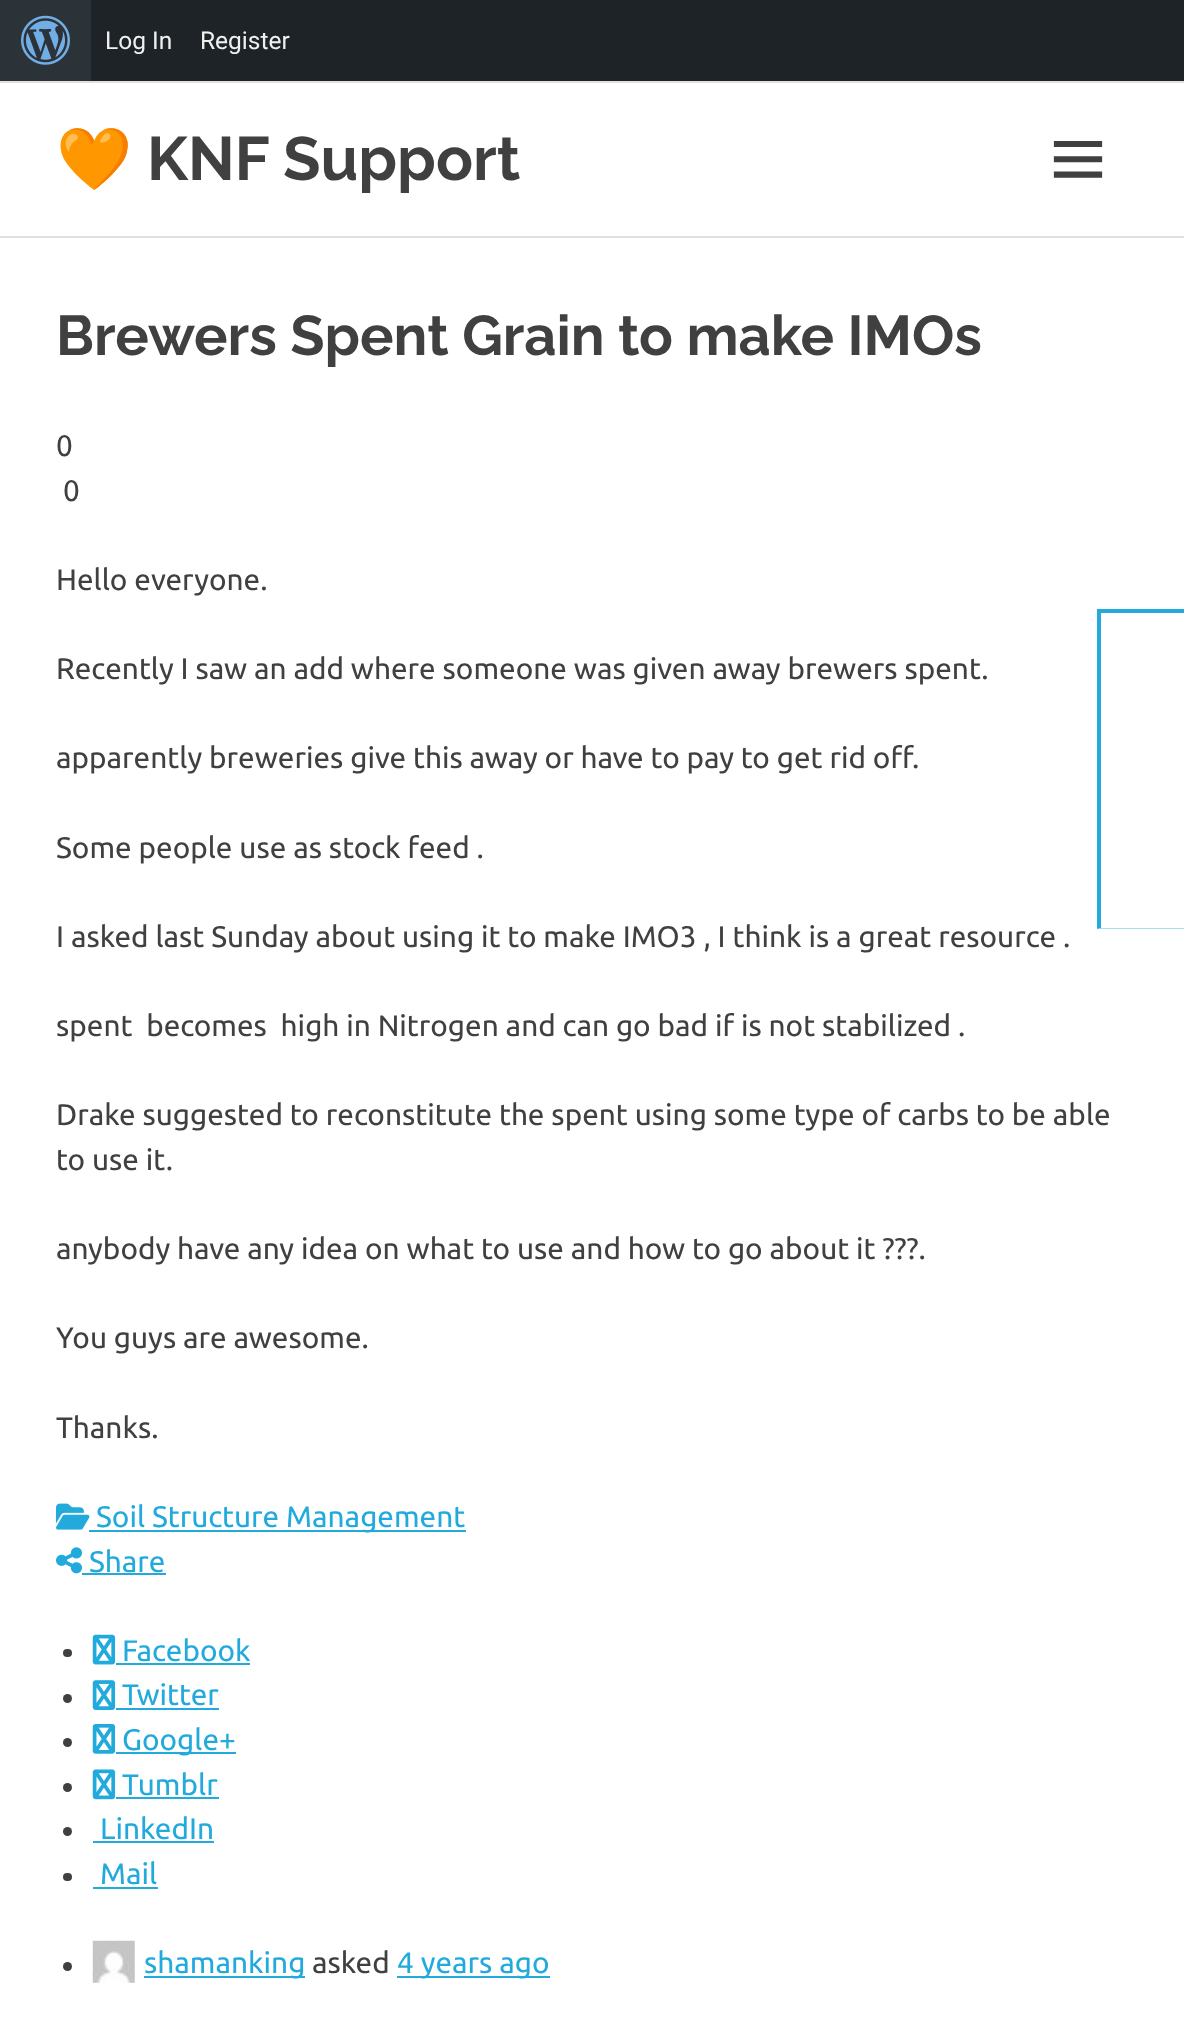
<?xml version="1.0" encoding="UTF-8"?>
<svg xmlns="http://www.w3.org/2000/svg" xmlns:xlink="http://www.w3.org/1999/xlink" width="1184" height="2031">
  <rect width="100%" height="100%" fill="#ffffff" />
  <rect x="91" width="1093" height="81" fill="#1d2327" />
  <rect width="91" height="81" fill="#2c3338" />
  <image x="21" y="15" width="49" height="50" xlink:href="image1.png" />
  <rect y="81" width="1184" height="2" fill="#e0e0e0" />
  <rect y="236" width="1184" height="2" fill="#e0e0e0" />
  <image x="1053" y="141" width="50" height="37" xlink:href="image2.png" />
  <image x="56" y="1503" width="34" height="27" xlink:href="image3.png" />
  <rect x="89" y="1530" width="377" height="2" fill="#22aadd" />
  <image x="56" y="1547" width="26" height="27" xlink:href="image4.png" />
  <rect x="82" y="1573" width="84" height="2" fill="#22aadd" />
  <rect x="63" y="1649" width="9" height="8" rx="4" fill="#404040" />
  <image x="92" y="1634" width="24" height="31" xlink:href="image5.png" />
  <rect x="116" y="1663" width="134" height="2" fill="#22aadd" />
  <circle cx="67.5" cy="1698.5" r="4.5" fill="#404040" />
  <image x="92" y="1680" width="24" height="30" xlink:href="image6.png" />
  <rect x="116" y="1708" width="103" height="2" fill="#22aadd" />
  <circle cx="67.5" cy="1742.5" r="4.5" fill="#404040" />
  <image x="92" y="1724" width="24" height="30" xlink:href="image7.png" />
  <rect x="116" y="1752" width="120" height="2" fill="#22aadd" />
  <circle cx="67.5" cy="1787.5" r="4.5" fill="#404040" />
  <image x="92" y="1769" width="24" height="31" xlink:href="image8.png" />
  <rect x="116" y="1797" width="103" height="2" fill="#22aadd" />
  <circle cx="67.5" cy="1831.5" r="4.5" fill="#404040" />
  <rect x="93" y="1841" width="121" height="2" fill="#22aadd" />
  <rect x="63" y="1873" width="9" height="8" rx="4" fill="#404040" />
  <rect x="93" y="1887" width="65" height="2" fill="#22aadd" />
  <circle cx="67.5" cy="1966.5" r="4.5" fill="#404040" />
  <image x="92" y="1940" width="43" height="43" xlink:href="image9.png" />
  <rect x="144" y="1976" width="161" height="2" fill="#22aadd" />
  <rect x="397" y="1976" width="153" height="2" fill="#22aadd" />
  <rect x="1097" y="609" width="87" height="4" fill="#22aadd" />
  <path d="M 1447 929 h -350 l 4 -1 h 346 z" fill="#a7ddf1" />
  <path d="M 1097 929 v -320 l 4 3 v 316 z" fill="#22aadd" />
  <text x="105" y="49" style="font-family: Roboto; font-size: 24.5px; fill: #f0f0f1">Log In</text>
  <text x="200" y="49" style="font-family: Roboto; font-size: 24.5px; fill: #f0f0f1">Register</text>
  <text x="56" y="180" style="font-family: Noto Color Emoji; font-size: 61.25px; font-weight: bold; fill: #404040">🧡</text>
  <text x="147" y="180" style="font-family: Raleway; font-size: 61.25px; font-weight: bold; fill: #404040">KNF Support</text>
  <text x="56" y="355" style="font-family: Raleway; font-size: 56px; font-weight: bold; fill: #404040">Brewers Spent Grain to make IMOs</text>
  <text x="56" y="456" style="font-family: Ubuntu; font-size: 29.75px; fill: #404040">0</text>
  <text x="63" y="501" style="font-family: Ubuntu; font-size: 29.75px; fill: #404040">0</text>
  <text x="56" y="590" style="font-family: Ubuntu; font-size: 29.75px; fill: #404040">Hello everyone.</text>
  <text x="56" y="679" style="font-family: Ubuntu; font-size: 29.75px; fill: #404040">Recently I saw an add where someone was given away brewers spent.</text>
  <text x="56" y="768" style="font-family: Ubuntu; font-size: 29.75px; fill: #404040">apparently breweries give this away or have to pay to get rid off.</text>
  <text x="56" y="858" style="font-family: Ubuntu; font-size: 29.75px; fill: #404040">Some people use as stock feed .</text>
  <text x="56" y="947" style="font-family: Ubuntu; font-size: 29.75px; fill: #404040">I asked last Sunday about using it to make IMO3 , I think is a great resource .</text>
  <text x="56" y="1036" style="font-family: Ubuntu; font-size: 29.75px; fill: #404040" xml:space="preserve">spent  becomes  high in Nitrogen and can go bad if is not stabilized .</text>
  <text x="56" y="1125" style="font-family: Ubuntu; font-size: 29.75px; fill: #404040">Drake suggested to reconstitute the spent using some type of carbs to be able</text>
  <text x="56" y="1170" style="font-family: Ubuntu; font-size: 29.75px; fill: #404040">to use it.</text>
  <text x="56" y="1259" style="font-family: Ubuntu; font-size: 29.75px; fill: #404040">anybody have any idea on what to use and how to go about it ???.</text>
  <text x="56" y="1348" style="font-family: Ubuntu; font-size: 29.75px; fill: #404040">You guys are awesome.</text>
  <text x="56" y="1438" style="font-family: Ubuntu; font-size: 29.75px; fill: #404040">Thanks.</text>
  <text x="96" y="1527" style="font-family: Ubuntu; font-size: 29.75px; fill: #22aadd">Soil Structure Management</text>
  <text x="89" y="1572" style="font-family: Ubuntu; font-size: 29.75px; fill: #22aadd">Share</text>
  <text x="122" y="1661" style="font-family: Ubuntu; font-size: 29.75px; fill: #22aadd">Facebook</text>
  <text x="122" y="1705" style="font-family: Ubuntu; font-size: 29.75px; fill: #22aadd">Twitter</text>
  <text x="122" y="1750" style="font-family: Ubuntu; font-size: 29.75px; fill: #22aadd">Google+</text>
  <text x="122" y="1795" style="font-family: Ubuntu; font-size: 29.75px; fill: #22aadd">Tumblr</text>
  <text x="100" y="1839" style="font-family: Ubuntu; font-size: 29.75px; fill: #22aadd">LinkedIn</text>
  <text x="100" y="1884" style="font-family: Ubuntu; font-size: 29.75px; fill: #22aadd">Mail</text>
  <text x="144" y="1973" style="font-family: Ubuntu; font-size: 29.75px; fill: #22aadd">shamanking</text>
  <text x="312" y="1973" style="font-family: Ubuntu; font-size: 29.75px; fill: #404040">asked</text>
  <text x="397" y="1973" style="font-family: Ubuntu; font-size: 29.75px; fill: #22aadd">4 years ago</text>
</svg>
